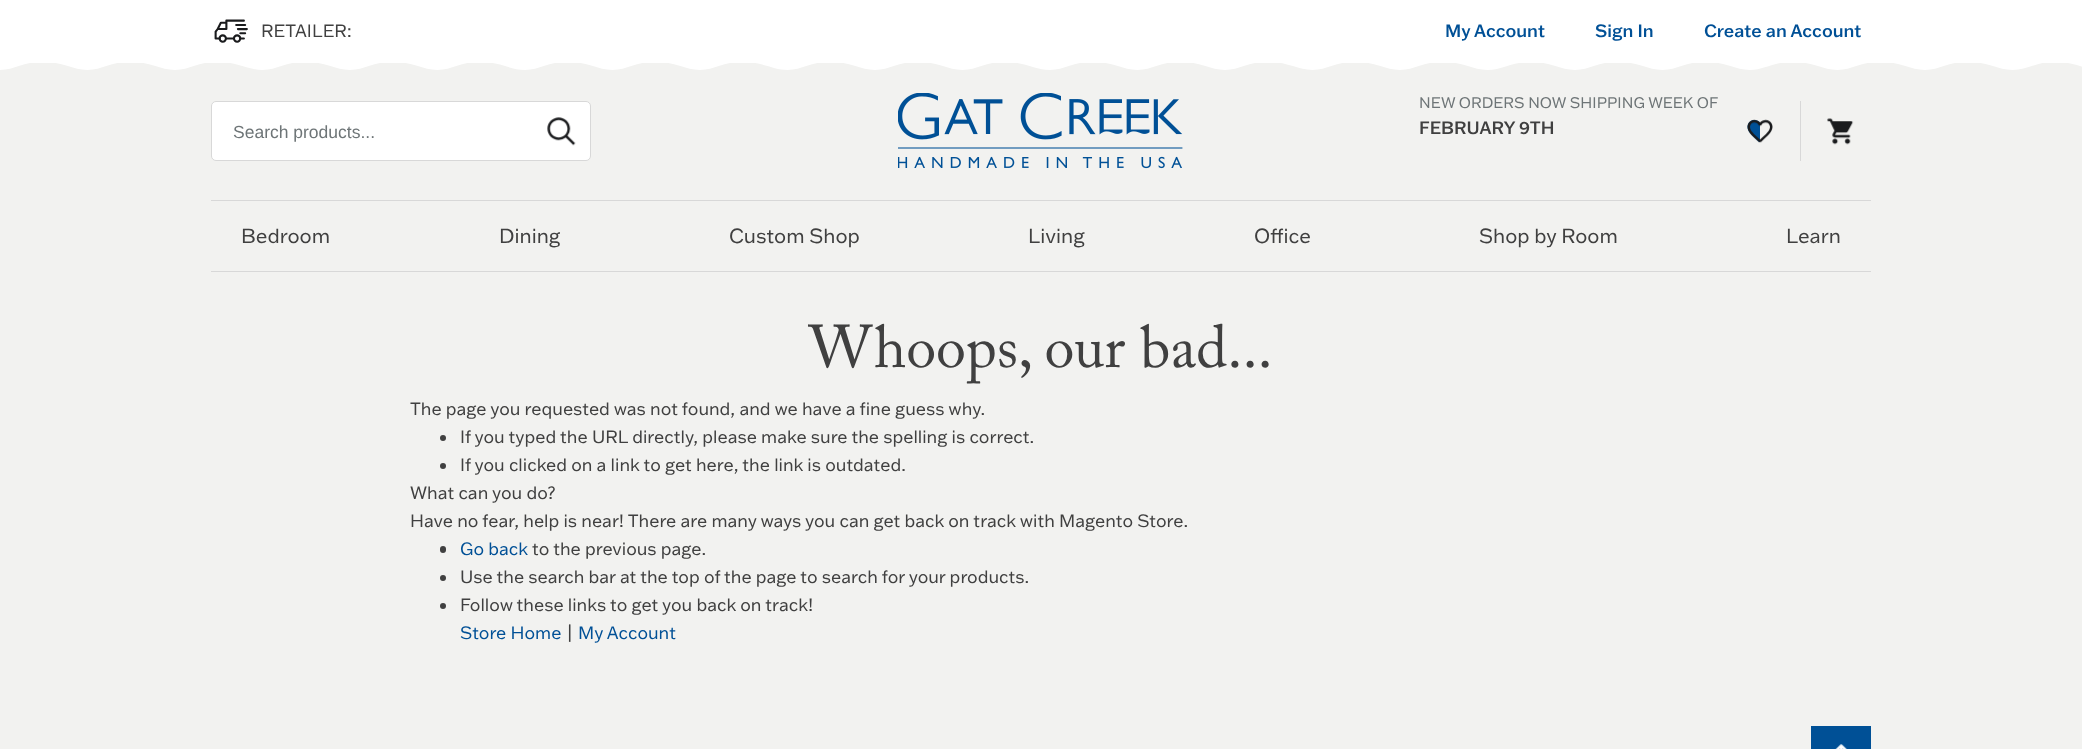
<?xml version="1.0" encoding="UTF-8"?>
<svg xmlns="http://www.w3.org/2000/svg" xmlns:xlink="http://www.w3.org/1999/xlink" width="2082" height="749">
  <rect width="100%" height="100%" fill="#f2f2f0" />
  <rect width="2082" height="63" fill="#ffffff" />
  <image x="214" y="19" width="34" height="24" xlink:href="image1.png" />
  <image x="0" y="63" width="2082" height="7" xlink:href="image2.png" />
  <rect x="211.5" y="101.5" width="379" height="59" rx="4.5" fill="#ffffff" stroke="#d8d8d8" />
  <image x="547" y="117" width="29" height="29" xlink:href="image3.png" />
  <image x="898" y="93" width="285" height="76" xlink:href="image4.png" />
  <image x="1747" y="120" width="13" height="22" xlink:href="image6.png" />
  <image x="1747" y="119" width="26" height="24" xlink:href="image5.png" />
  <rect x="1800" y="101" width="1" height="60" fill="#d8d8d8" />
  <image x="1827" y="118" width="27" height="27" xlink:href="image7.png" />
  <rect x="211" y="200" width="1660" height="1" fill="#d8d8d8" />
  <rect x="211" y="271" width="1660" height="1" fill="#d8d8d8" />
  <circle cx="443" cy="438" r="3" fill="#404040" />
  <circle cx="443" cy="466" r="3" fill="#404040" />
  <rect x="440" y="546" width="6" height="7" rx="3" fill="#404040" />
  <circle cx="443" cy="578" r="3" fill="#404040" />
  <circle cx="443" cy="606" r="3" fill="#404040" />
  <rect x="1811" y="726" width="60" height="23" fill="#005096" />
  <image x="1835" y="744" width="12" height="5" xlink:href="image8.png" />
  <text x="261" y="37" style="font-family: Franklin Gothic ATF; font-size: 17.5px; fill: #404040">RETAILER:</text>
  <text x="1445" y="37" style="font-family: Franklin Gothic ATF; font-size: 17.5px; font-weight: 500; fill: #005096">My Account</text>
  <text x="1595" y="37" style="font-family: Franklin Gothic ATF; font-size: 17.5px; font-weight: 500; fill: #005096">Sign In</text>
  <text x="1704" y="37" style="font-family: Franklin Gothic ATF; font-size: 17.5px; font-weight: 500; fill: #005096">Create an Account</text>
  <text x="233" y="138" style="font-family: Liberation Sans; font-size: 17.5px; fill: #6e7577">Search products...</text>
  <text x="1419" y="108" style="font-family: Franklin Gothic ATF; font-size: 15px; fill: #6e7577">NEW ORDERS NOW SHIPPING WEEK OF</text>
  <text x="1419" y="134" style="font-family: Franklin Gothic ATF; font-size: 17.5px; font-weight: 500; fill: #404040">FEBRUARY 9TH</text>
  <text x="241" y="243" style="font-family: Franklin Gothic ATF; font-size: 20px; fill: #404040">Bedroom</text>
  <text x="499" y="243" style="font-family: Franklin Gothic ATF; font-size: 20px; fill: #404040">Dining</text>
  <text x="729" y="243" style="font-family: Franklin Gothic ATF; font-size: 20px; fill: #404040">Custom Shop</text>
  <text x="1028" y="243" style="font-family: Franklin Gothic ATF; font-size: 20px; fill: #404040">Living</text>
  <text x="1254" y="243" style="font-family: Franklin Gothic ATF; font-size: 20px; fill: #404040">Office</text>
  <text x="1479" y="243" style="font-family: Franklin Gothic ATF; font-size: 20px; fill: #404040">Shop by Room</text>
  <text x="1786" y="243" style="font-family: Franklin Gothic ATF; font-size: 20px; fill: #404040">Learn</text>
  <text x="809" y="367" style="font-family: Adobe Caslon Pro; font-size: 60px; fill: #404040">Whoops, our bad...</text>
  <text x="410" y="415" style="font-family: Franklin Gothic ATF; font-size: 17.5px; fill: #404040">The page you requested was not found, and we have a fine guess why.</text>
  <text x="460" y="443" style="font-family: Franklin Gothic ATF; font-size: 17.5px; fill: #404040">If you typed the URL directly, please make sure the spelling is correct.</text>
  <text x="460" y="471" style="font-family: Franklin Gothic ATF; font-size: 17.5px; fill: #404040">If you clicked on a link to get here, the link is outdated.</text>
  <text x="410" y="499" style="font-family: Franklin Gothic ATF; font-size: 17.5px; fill: #404040">What can you do?</text>
  <text x="410" y="527" style="font-family: Franklin Gothic ATF; font-size: 17.5px; fill: #404040">Have no fear, help is near! There are many ways you can get back on track with Magento Store.</text>
  <text x="460" y="555" style="font-family: Franklin Gothic ATF; font-size: 17.5px; fill: #005096">Go back</text>
  <text x="532" y="555" style="font-family: Franklin Gothic ATF; font-size: 17.5px; fill: #404040">to the previous page.</text>
  <text x="460" y="583" style="font-family: Franklin Gothic ATF; font-size: 17.5px; fill: #404040">Use the search bar at the top of the page to search for your products.</text>
  <text x="460" y="611" style="font-family: Franklin Gothic ATF; font-size: 17.5px; fill: #404040">Follow these links to get you back on track!</text>
  <text x="460" y="639" style="font-family: Franklin Gothic ATF; font-size: 17.5px; fill: #005096">Store Home</text>
  <text x="566" y="639" style="font-family: Franklin Gothic ATF; font-size: 17.5px; fill: #404040">|</text>
  <text x="578" y="639" style="font-family: Franklin Gothic ATF; font-size: 17.5px; fill: #005096">My Account</text>
</svg>
